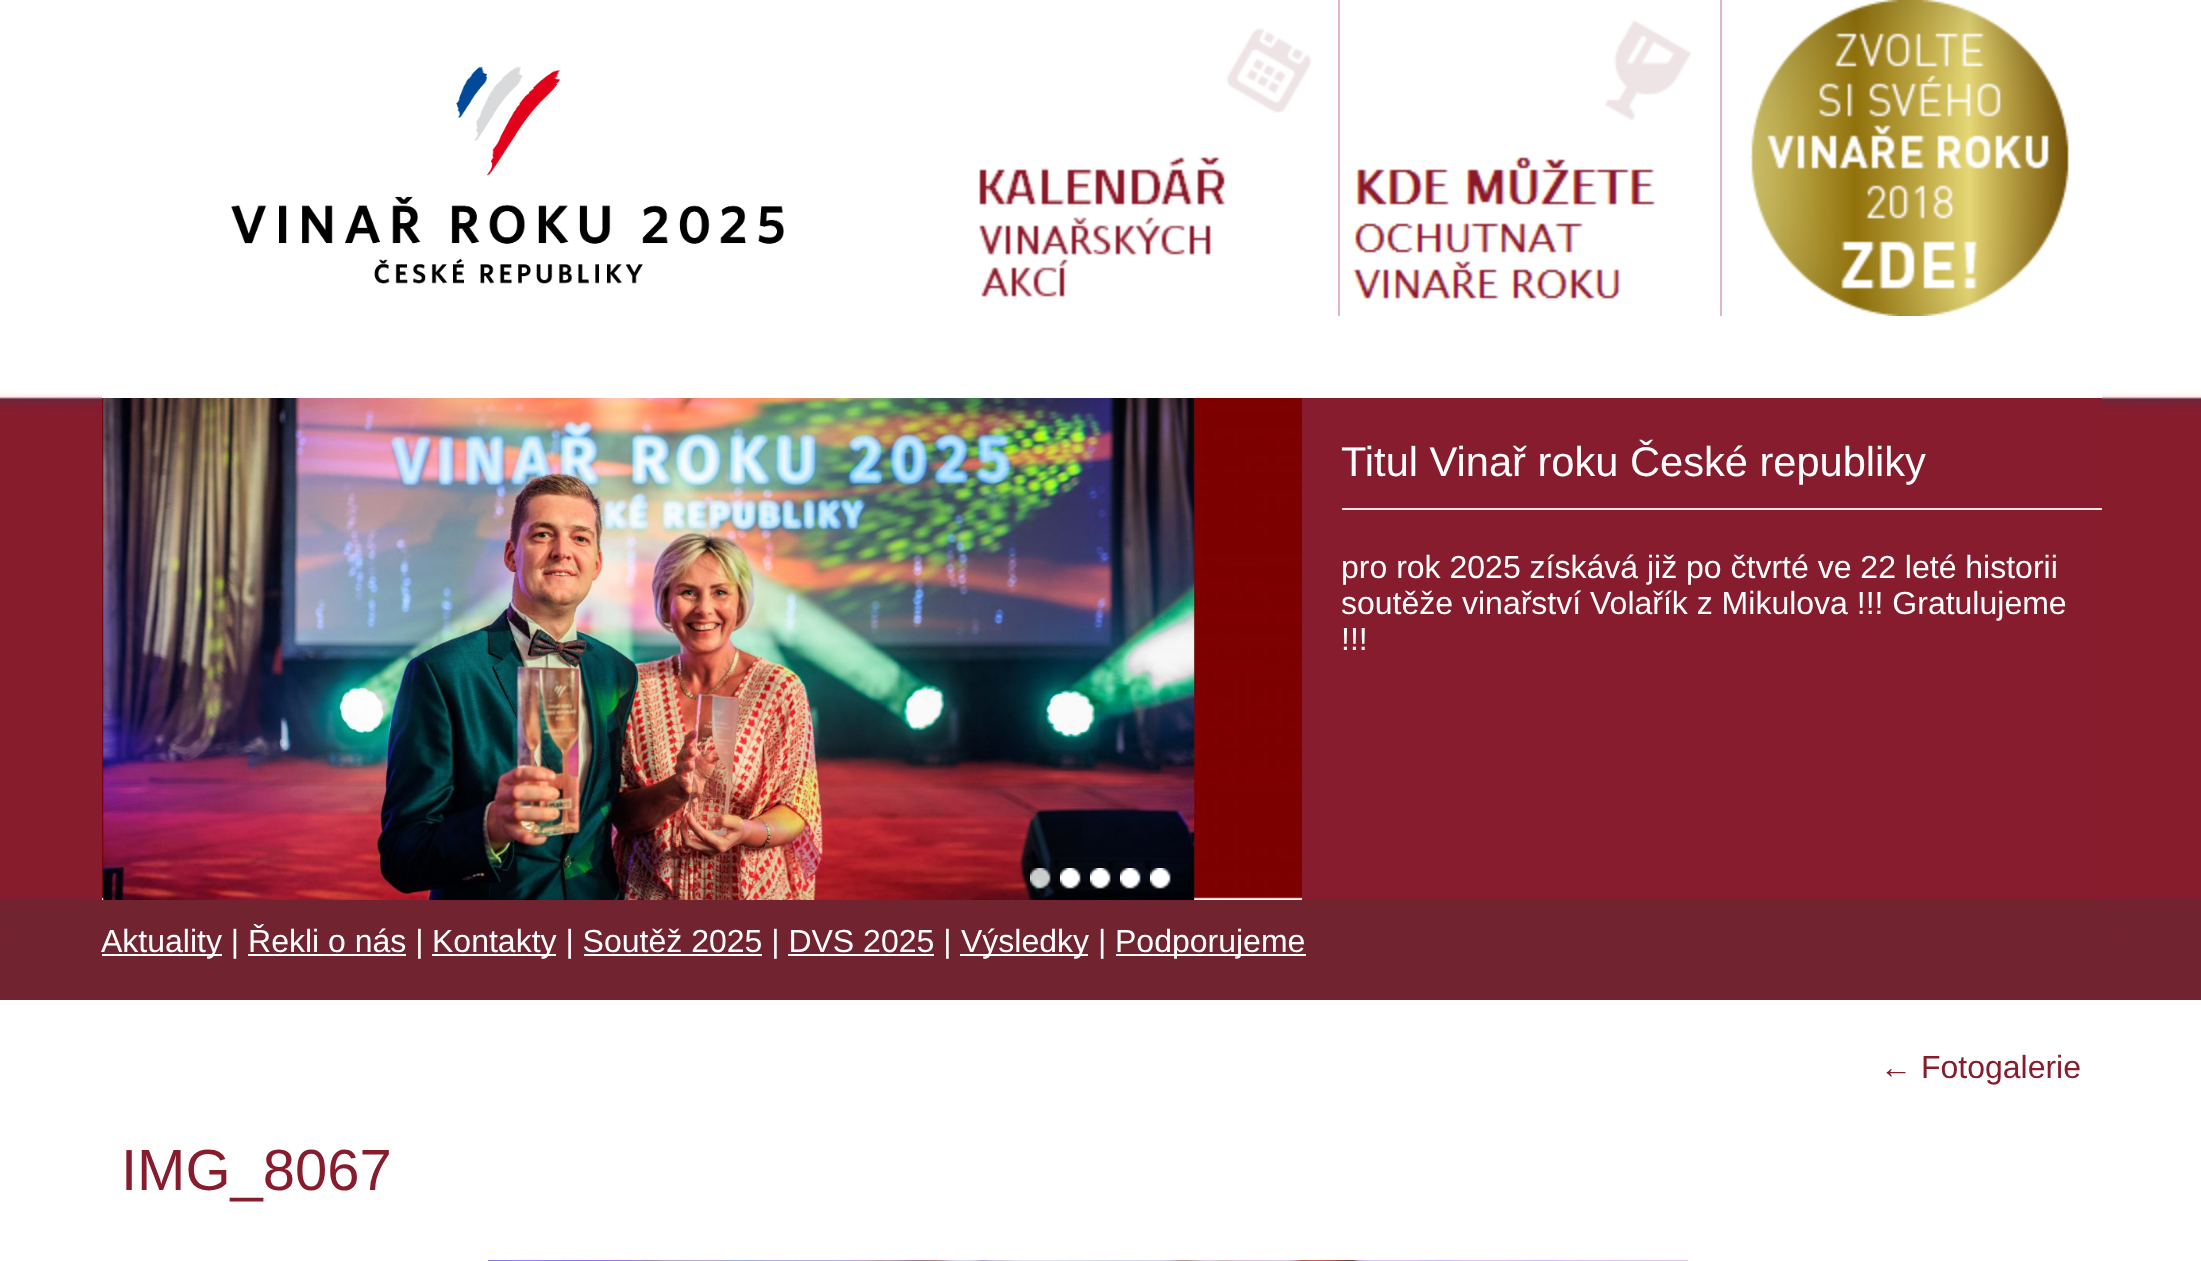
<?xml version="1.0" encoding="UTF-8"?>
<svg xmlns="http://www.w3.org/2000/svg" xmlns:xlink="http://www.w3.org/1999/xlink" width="2201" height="1261">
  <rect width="100%" height="100%" fill="#ffffff" />
  <image x="0" y="393" width="2201" height="607" xlink:href="image1.png" />
  <rect x="102" y="393" width="2000" height="607" fill="#ffffff" />
  <image x="231" y="66" width="553" height="218" xlink:href="image2.png" />
  <image x="979" y="28" width="333" height="269" xlink:href="image3.png" />
  <image x="1353" y="20" width="338" height="279" xlink:href="image4.png" />
  <rect x="1338" width="2" height="316" fill="#deb7bf" />
  <image x="1749" y="0" width="320" height="316" xlink:href="image5.png" />
  <rect x="1720" width="2" height="316" fill="#deb7bf" />
  <image x="102" y="398" width="1200" height="502" xlink:href="image6.png" />
  <rect x="1302" y="398" width="800" height="502" fill="#861c2d" />
  <rect x="1342" y="508" width="760" height="2" fill="#eee3e5" />
  <image x="1030" y="868" width="21" height="22" xlink:href="image7.png" />
  <image x="1060" y="868" width="21" height="22" xlink:href="image8.png" />
  <image x="1090" y="868" width="21" height="22" xlink:href="image9.png" />
  <image x="1120" y="868" width="21" height="22" xlink:href="image10.png" />
  <image x="1150" y="868" width="21" height="22" xlink:href="image11.png" />
  <rect x="102" y="900" width="2000" height="100" fill="#712330" />
  <rect x="102" y="954" width="120" height="2" fill="#ffffff" />
  <rect x="432" y="954" width="124" height="2" fill="#ffffff" />
  <rect x="960" y="954" width="128" height="2" fill="#ffffff" />
  <rect x="1116" y="954" width="190" height="2" fill="#ffffff" />
  <rect x="248" y="954" width="158" height="2" fill="#ffffff" />
  <rect x="584" y="954" width="178" height="2" fill="#ffffff" />
  <rect x="788" y="954" width="146" height="2" fill="#ffffff" />
  <image x="488" y="1260" width="1200" height="1" xlink:href="image12.png" />
  <text x="1341" y="476" style="font-family: Liberation Sans; font-size: 41.6px; fill: #ffffff">Titul Vinař roku České republiky</text>
  <text x="1341" y="578" style="font-family: Liberation Sans; font-size: 32px; fill: #ffffff">pro rok 2025 získává již po čtvrté ve 22 leté historii</text>
  <text x="1341" y="614" style="font-family: Liberation Sans; font-size: 32px; fill: #ffffff">soutěže vinařství Volařík z Mikulova !!! Gratulujeme</text>
  <text x="1341" y="650" style="font-family: Liberation Sans; font-size: 32px; fill: #ffffff">!!!</text>
  <text x="101" y="952" style="font-family: Liberation Sans; font-size: 32px; fill: #ffffff">Aktuality | Řekli o nás |</text>
  <text x="432" y="952" style="font-family: Liberation Sans; font-size: 32px; fill: #ffffff">Kontakty | Soutěž 2025 | DVS 2025 |</text>
  <text x="961" y="952" style="font-family: Liberation Sans; font-size: 32px; fill: #ffffff">Výsledky |</text>
  <text x="1115" y="952" style="font-family: Liberation Sans; font-size: 32px; fill: #ffffff">Podporujeme</text>
  <text x="1880" y="1078" style="font-family: Liberation Sans; font-size: 32px; fill: #871c2c">← Fotogalerie</text>
  <text x="121" y="1190" style="font-family: Liberation Sans; font-size: 58px; fill: #871c2c">IMG_8067</text>
</svg>
